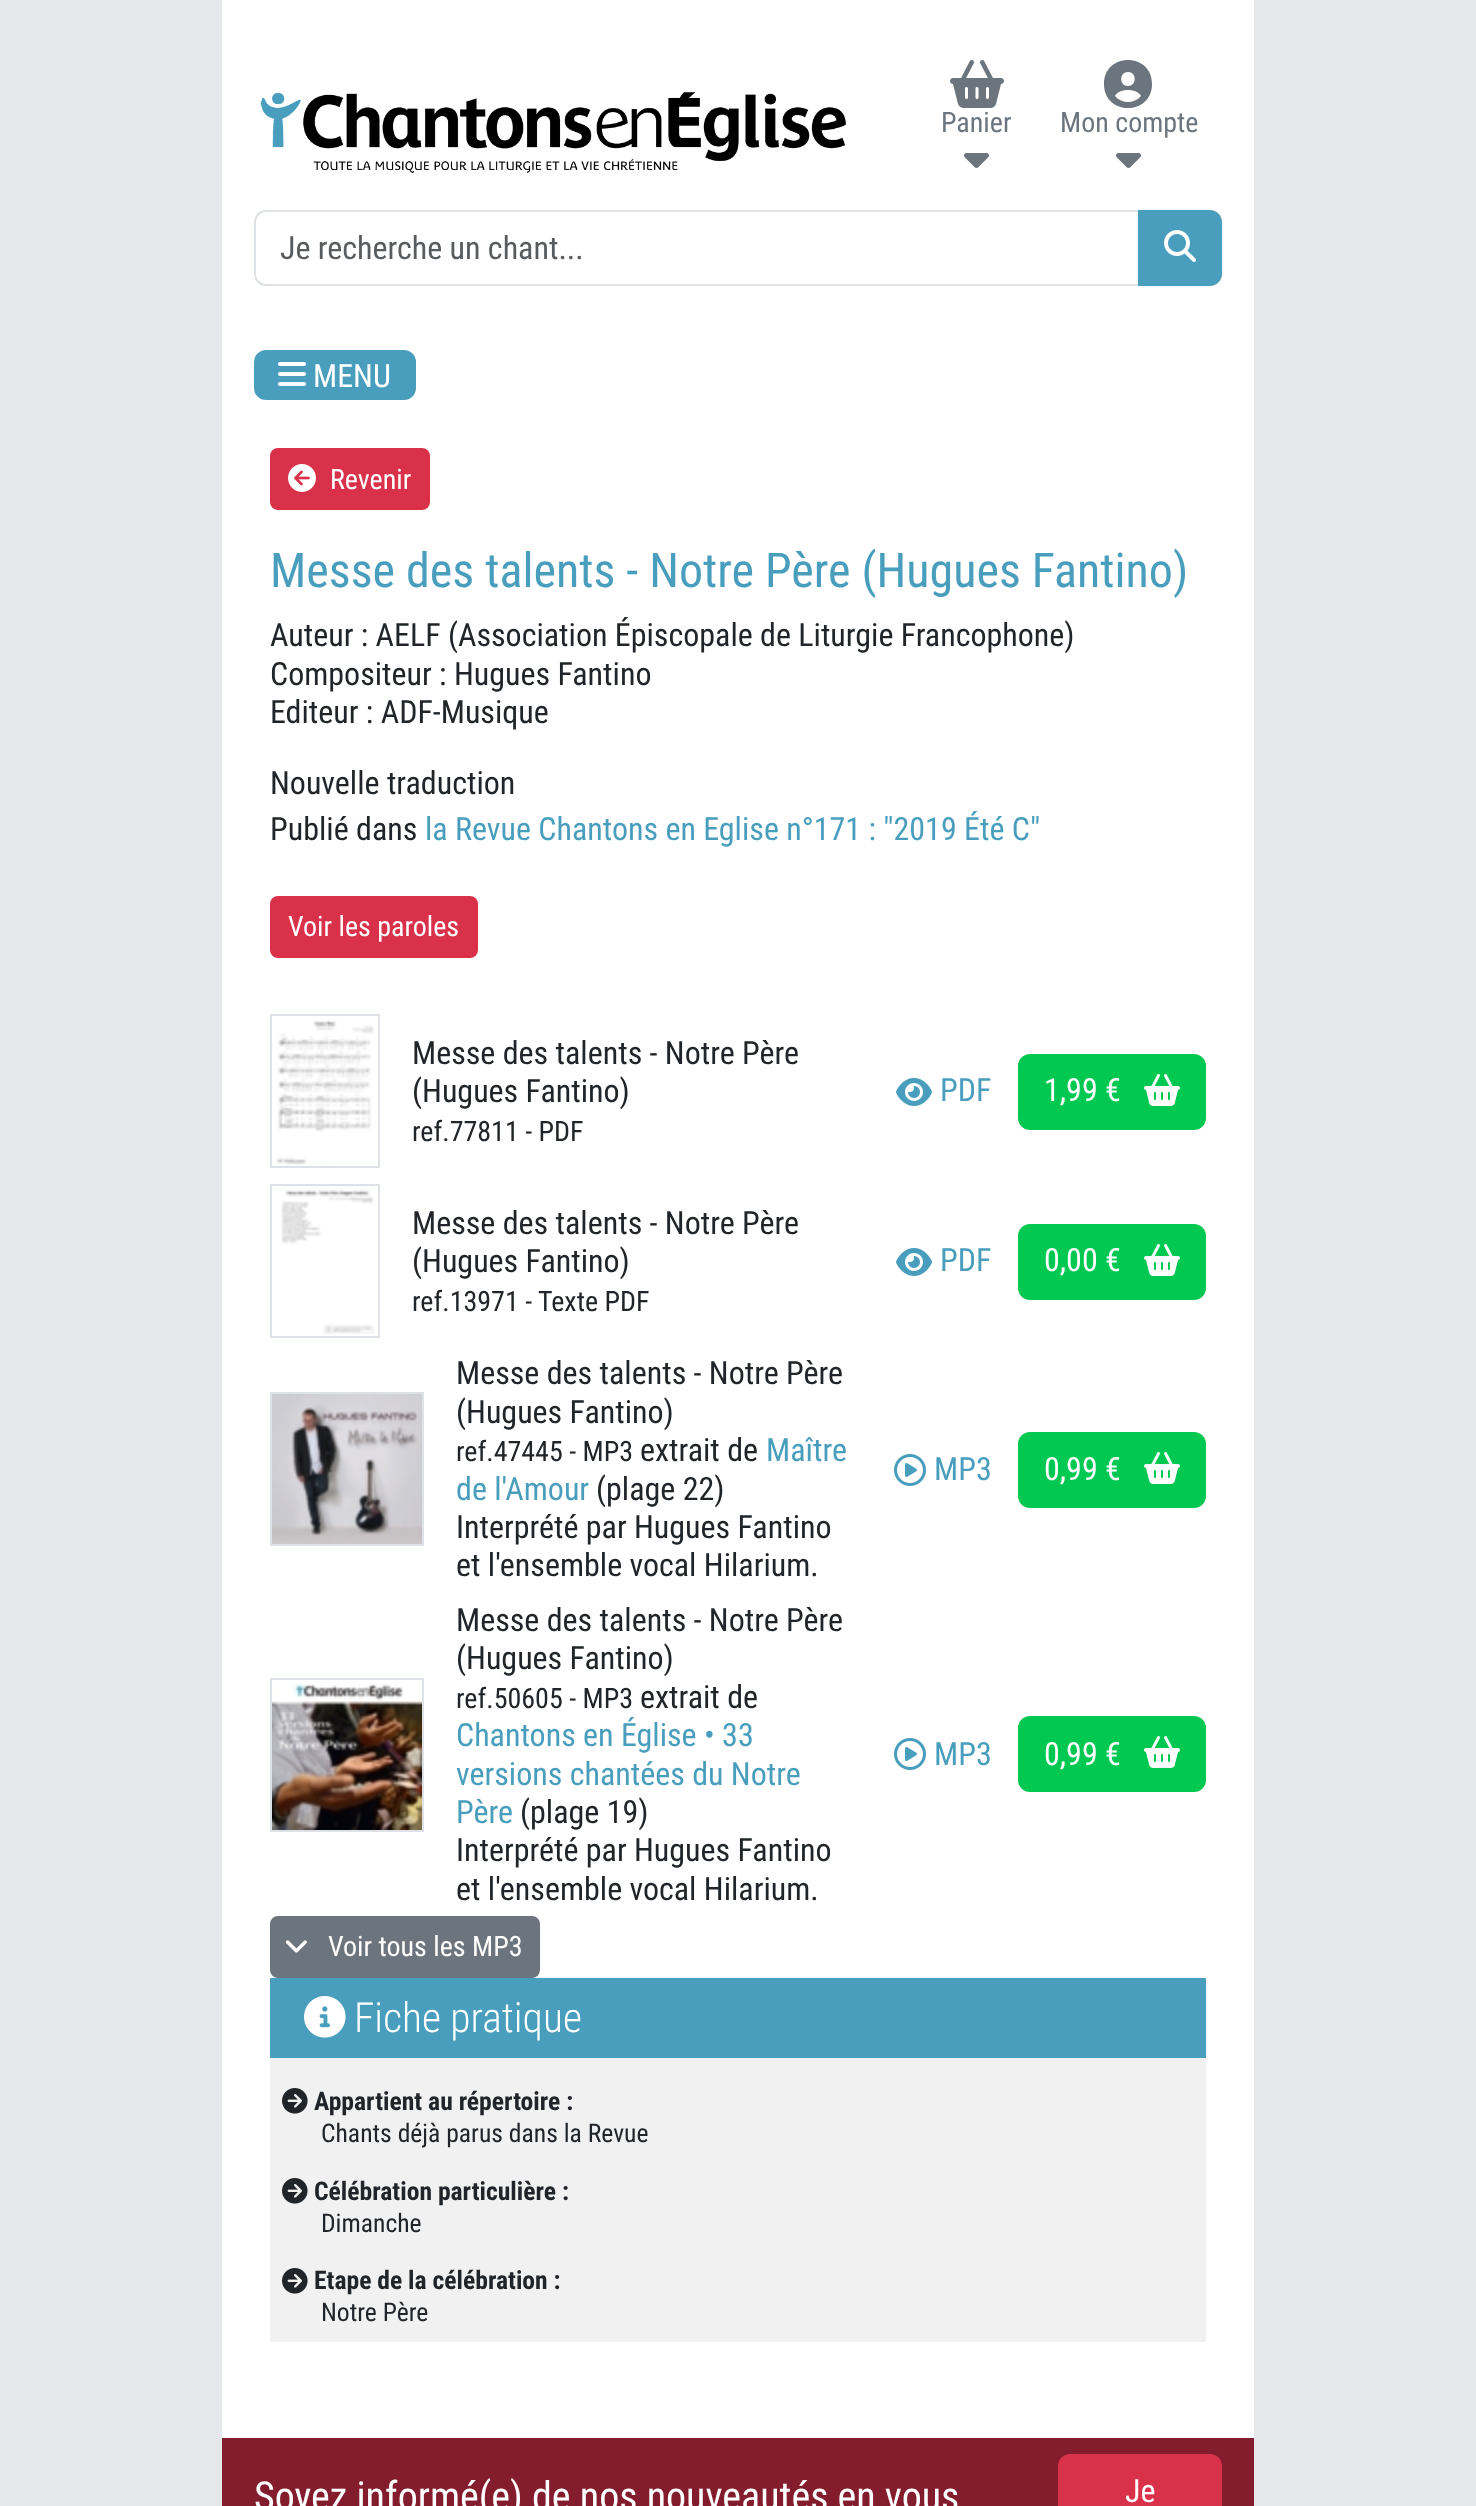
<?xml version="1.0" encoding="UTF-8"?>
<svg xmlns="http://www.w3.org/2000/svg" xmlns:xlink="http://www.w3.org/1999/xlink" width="1476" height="2506">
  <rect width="100%" height="100%" fill="#e5e7eb" />
  <rect x="222" width="1032" height="2438" fill="#ffffff" />
  <image x="260" y="92" width="587" height="81" xlink:href="image1.png" />
  <image x="950" y="60" width="54" height="48" xlink:href="image2.png" />
  <image x="964" y="153" width="25" height="15" xlink:href="image3.png" />
  <path d="M 1141 96 c -4 -8 -22 -8 -26 0 c 7 8 19 8 26 0 z m -37 -12 c 0 -32 48 -32 48 0 c 0 32 -48 32 -48 0 z m 24 2 c 9 0 9 -14 0 -14 c -9 0 -9 14 0 14 z" fill="#6c757d" />
  <image x="1116" y="153" width="25" height="15" xlink:href="image3.png" />
  <path d="M 266 211 h 873 v 74 h -873 c -6 0 -11 -5 -11 -11 v -52 c 0 -6 5 -11 11 -11 z" fill="none" stroke="#dee2e6" stroke-width="2" />
  <path d="M 1138 210 h 72 c 6.5 0 12 5.5 12 12 v 52 c 0 6.5 -5.5 12 -12 12 h -72 z" fill="#499ebd" />
  <image x="1164" y="230" width="32" height="32" xlink:href="image4.png" />
  <rect x="254" y="350" width="162" height="50" rx="12" fill="#499ebd" />
  <image x="278" y="362" width="28" height="24" xlink:href="image5.png" />
  <rect x="270" y="448" width="160" height="62" rx="8" fill="#da314b" />
  <image x="288" y="464" width="28" height="28" xlink:href="image6.png" />
  <rect x="270" y="896" width="208" height="62" rx="8" fill="#da314b" />
  <rect x="271" y="1015" width="108" height="152" fill="none" stroke="#dee2e6" stroke-width="2" />
  <image x="276" y="1020" width="98" height="145" xlink:href="image7.png" />
  <image x="896" y="1078" width="36" height="28" xlink:href="image8.png" />
  <rect x="1018" y="1054" width="188" height="76" rx="12" fill="#00c851" />
  <image x="1144" y="1074" width="36" height="32" xlink:href="image9.png" />
  <rect x="271" y="1185" width="108" height="152" fill="none" stroke="#dee2e6" stroke-width="2" />
  <image x="281" y="1189" width="93" height="145" xlink:href="image10.png" />
  <image x="896" y="1248" width="36" height="28" xlink:href="image8.png" />
  <rect x="1018" y="1224" width="188" height="76" rx="12" fill="#00c851" />
  <image x="1144" y="1244" width="36" height="32" xlink:href="image9.png" />
  <rect x="271" y="1393" width="152" height="152" fill="none" stroke="#dee2e6" stroke-width="2" />
  <image x="272" y="1394" width="150" height="150" xlink:href="image11.png" />
  <image x="894" y="1454" width="32" height="32" xlink:href="image12.png" />
  <rect x="1018" y="1432" width="188" height="76" rx="12" fill="#00c851" />
  <image x="1144" y="1452" width="36" height="32" xlink:href="image9.png" />
  <rect x="271" y="1679" width="152" height="152" fill="none" stroke="#dee2e6" stroke-width="2" />
  <image x="272" y="1683" width="150" height="147" xlink:href="image13.png" />
  <image x="894" y="1738" width="32" height="32" xlink:href="image12.png" />
  <rect x="1018" y="1716" width="188" height="76" rx="12" fill="#00c851" />
  <image x="1144" y="1736" width="36" height="32" xlink:href="image9.png" />
  <rect x="271" y="1917" width="268" height="60" rx="7" fill="#6c757d" stroke="#6c757d" stroke-width="2" />
  <image x="285" y="1940" width="22" height="13" xlink:href="image14.png" />
  <rect x="270" y="1978" width="936" height="80" fill="#499ebd" />
  <image x="304" y="1996" width="42" height="42" xlink:href="image15.png" />
  <rect x="270" y="2058" width="936" height="284" fill="#f1f1f1" />
  <image x="282" y="2088" width="26" height="26" xlink:href="image16.png" />
  <image x="282" y="2178" width="26" height="26" xlink:href="image16.png" />
  <image x="282" y="2268" width="26" height="26" xlink:href="image16.png" />
  <rect x="222" y="2438" width="1032" height="68" fill="#831d2d" />
  <rect x="1058" y="2454" width="164" height="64" rx="12" fill="#da314b" />
  <text x="941" y="132" style="font-family: Roboto Condensed; font-size: 28px; fill: #6c757d">Panier</text>
  <text x="1060" y="132" style="font-family: Roboto Condensed; font-size: 28px; fill: #6c757d">Mon compte</text>
  <text x="280" y="259" style="font-family: Roboto Condensed; font-size: 32px; fill: #595c5f">Je recherche un chant...</text>
  <text x="313" y="387" style="font-family: Roboto Condensed; font-size: 32px; fill: #ffffff">MENU</text>
  <text x="330" y="489" style="font-family: Roboto Condensed; font-size: 28px; fill: #ffffff">Revenir</text>
  <text x="270" y="587" style="font-family: Roboto Condensed; font-size: 48px; fill: #499ebd">Messe des talents - Notre Père (Hugues Fantino)</text>
  <text x="270" y="646" style="font-family: Roboto Condensed; font-size: 32px; fill: #212529">Auteur : AELF (Association Épiscopale de Liturgie Francophone)</text>
  <text x="270" y="685" style="font-family: Roboto Condensed; font-size: 32px; fill: #212529">Compositeur : Hugues Fantino</text>
  <text x="270" y="723" style="font-family: Roboto Condensed; font-size: 32px; fill: #212529">Editeur : ADF-Musique</text>
  <text x="270" y="794" style="font-family: Roboto Condensed; font-size: 32px; fill: #212529">Nouvelle traduction</text>
  <text x="270" y="840" style="font-family: Roboto Condensed; font-size: 32px; fill: #212529">Publié dans</text>
  <text x="425" y="840" style="font-family: Roboto Condensed; font-size: 32px; fill: #499ebd">la Revue Chantons en Eglise n°171 : "2019 Été C"</text>
  <text x="288" y="936" style="font-family: Roboto Condensed; font-size: 28px; fill: #ffffff">Voir les paroles</text>
  <text x="412" y="1064" style="font-family: Roboto Condensed; font-size: 32px; fill: #212529">Messe des talents - Notre Père</text>
  <text x="412" y="1102" style="font-family: Roboto Condensed; font-size: 32px; fill: #212529">(Hugues Fantino)</text>
  <text x="412" y="1141" style="font-family: Roboto Condensed; font-size: 28px; fill: #212529">ref.77811 - PDF</text>
  <text x="940" y="1101" style="font-family: Roboto Condensed; font-size: 32px; fill: #499ebd">PDF</text>
  <text x="1044" y="1101" style="font-family: Roboto Condensed; font-size: 32px; fill: #ffffff">1,99 €</text>
  <text x="412" y="1234" style="font-family: Roboto Condensed; font-size: 32px; fill: #212529">Messe des talents - Notre Père</text>
  <text x="412" y="1272" style="font-family: Roboto Condensed; font-size: 32px; fill: #212529">(Hugues Fantino)</text>
  <text x="412" y="1311" style="font-family: Roboto Condensed; font-size: 28px; fill: #212529">ref.13971 - Texte PDF</text>
  <text x="940" y="1271" style="font-family: Roboto Condensed; font-size: 32px; fill: #499ebd">PDF</text>
  <text x="1044" y="1271" style="font-family: Roboto Condensed; font-size: 32px; fill: #ffffff">0,00 €</text>
  <text x="456" y="1384" style="font-family: Roboto Condensed; font-size: 32px; fill: #212529">Messe des talents - Notre Père</text>
  <text x="456" y="1423" style="font-family: Roboto Condensed; font-size: 32px; fill: #212529">(Hugues Fantino)</text>
  <text x="456" y="1461" style="font-family: Roboto Condensed; font-size: 28px; fill: #212529">ref.47445 - MP3</text>
  <text x="640" y="1461" style="font-family: Roboto Condensed; font-size: 32px; fill: #212529">extrait de</text>
  <text x="766" y="1461" style="font-family: Roboto Condensed; font-size: 32px; fill: #499ebd">Maître</text>
  <text x="456" y="1500" style="font-family: Roboto Condensed; font-size: 32px; fill: #499ebd">de l'Amour</text>
  <text x="596" y="1500" style="font-family: Roboto Condensed; font-size: 32px; fill: #212529">(plage 22)</text>
  <text x="456" y="1538" style="font-family: Roboto Condensed; font-size: 32px; fill: #212529">Interprété par Hugues Fantino</text>
  <text x="456" y="1576" style="font-family: Roboto Condensed; font-size: 32px; fill: #212529">et l'ensemble vocal Hilarium.</text>
  <text x="934" y="1480" style="font-family: Roboto Condensed; font-size: 32px; fill: #499ebd">MP3</text>
  <text x="1044" y="1480" style="font-family: Roboto Condensed; font-size: 32px; fill: #ffffff">0,99 €</text>
  <text x="456" y="1631" style="font-family: Roboto Condensed; font-size: 32px; fill: #212529">Messe des talents - Notre Père</text>
  <text x="456" y="1669" style="font-family: Roboto Condensed; font-size: 32px; fill: #212529">(Hugues Fantino)</text>
  <text x="456" y="1708" style="font-family: Roboto Condensed; font-size: 28px; fill: #212529">ref.50605 - MP3</text>
  <text x="640" y="1708" style="font-family: Roboto Condensed; font-size: 32px; fill: #212529">extrait de</text>
  <text x="456" y="1746" style="font-family: Roboto Condensed; font-size: 32px; fill: #499ebd">Chantons en Église • 33</text>
  <text x="456" y="1785" style="font-family: Roboto Condensed; font-size: 32px; fill: #499ebd">versions chantées du Notre</text>
  <text x="456" y="1823" style="font-family: Roboto Condensed; font-size: 32px; fill: #499ebd">Père</text>
  <text x="520" y="1823" style="font-family: Roboto Condensed; font-size: 32px; fill: #212529">(plage 19)</text>
  <text x="456" y="1861" style="font-family: Roboto Condensed; font-size: 32px; fill: #212529">Interprété par Hugues Fantino</text>
  <text x="456" y="1900" style="font-family: Roboto Condensed; font-size: 32px; fill: #212529">et l'ensemble vocal Hilarium.</text>
  <text x="934" y="1765" style="font-family: Roboto Condensed; font-size: 32px; fill: #499ebd">MP3</text>
  <text x="1044" y="1765" style="font-family: Roboto Condensed; font-size: 32px; fill: #ffffff">0,99 €</text>
  <text x="328" y="1956" style="font-family: Roboto Condensed; font-size: 28px; fill: #ffffff">Voir tous les MP3</text>
  <text x="354" y="2032" style="font-family: Roboto Condensed; font-size: 41.5px; font-weight: 300; fill: #ffffff">Fiche pratique</text>
  <text x="314" y="2110" style="font-family: Roboto Condensed; font-size: 25.6px; font-weight: bold; fill: #212529">Appartient au répertoire :</text>
  <text x="321" y="2142" style="font-family: Roboto Condensed; font-size: 25.6px; fill: #212529">Chants déjà parus dans la Revue</text>
  <text x="314" y="2200" style="font-family: Roboto Condensed; font-size: 25.6px; font-weight: bold; fill: #212529">Célébration particulière :</text>
  <text x="321" y="2232" style="font-family: Roboto Condensed; font-size: 25.6px; fill: #212529">Dimanche</text>
  <text x="314" y="2289" style="font-family: Roboto Condensed; font-size: 25.6px; font-weight: bold; fill: #212529">Etape de la célébration :</text>
  <text x="321" y="2321" style="font-family: Roboto Condensed; font-size: 25.6px; fill: #212529">Notre Père</text>
  <text x="254" y="2510" style="font-family: Roboto Condensed; font-size: 40px; fill: #ffffff">Soyez informé(e) de nos nouveautés en vous</text>
  <text x="1125" y="2502" style="font-family: Roboto Condensed; font-size: 32px; fill: #ffffff">Je</text>
</svg>
